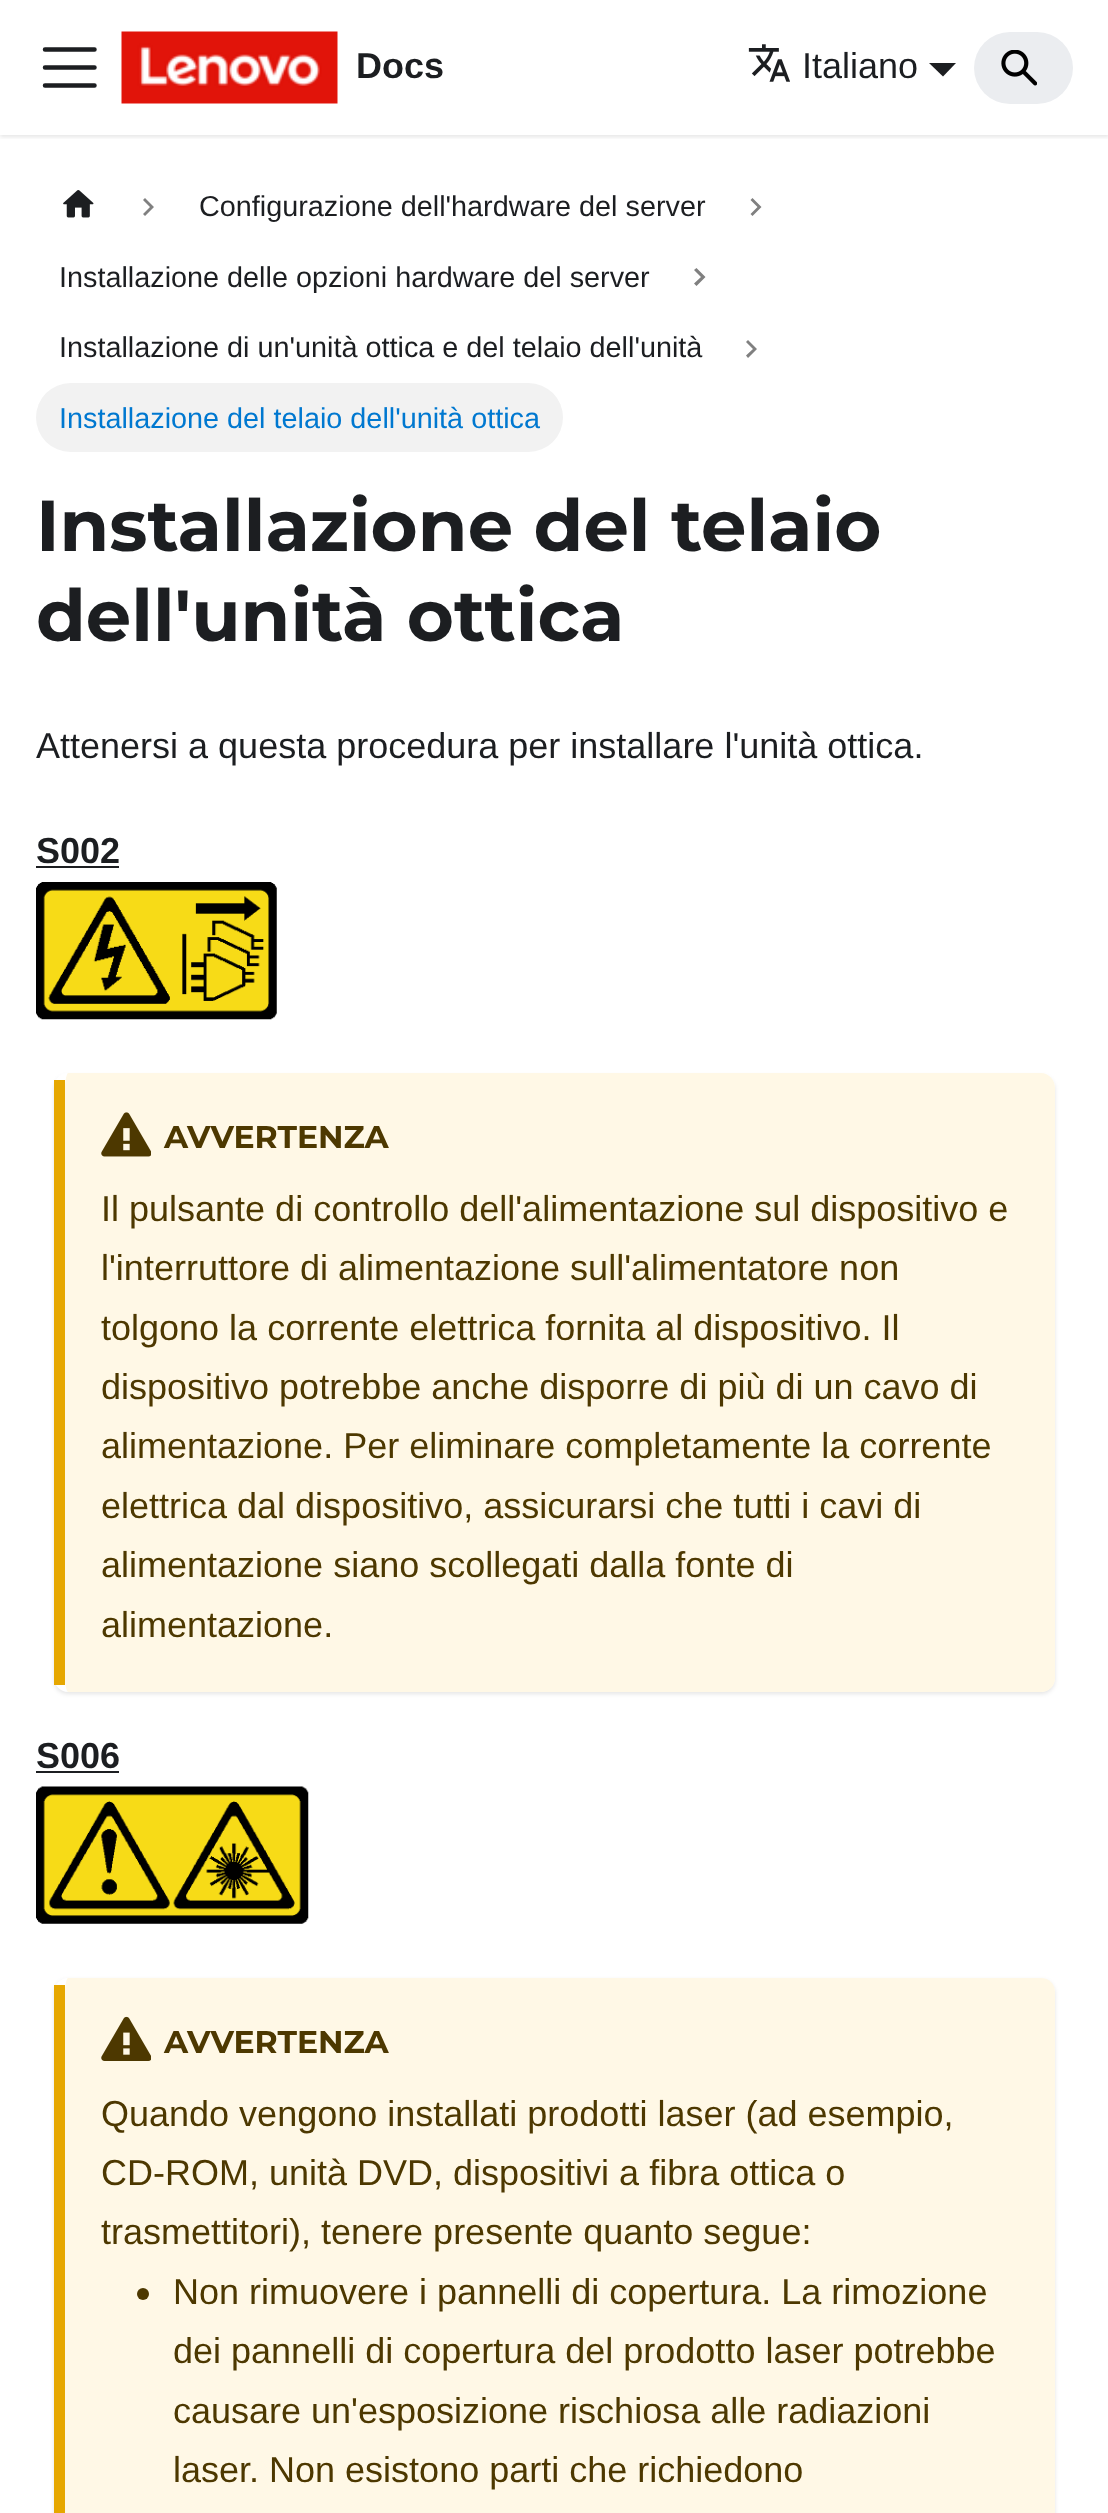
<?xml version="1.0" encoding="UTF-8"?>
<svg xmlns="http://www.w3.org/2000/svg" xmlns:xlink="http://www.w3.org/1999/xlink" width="1108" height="2513">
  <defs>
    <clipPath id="clip1"><rect x="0" y="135" width="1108" height="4" /></clipPath>
    <clipPath id="clip2"><path d="M 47 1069 h 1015 v 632 h -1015 z m 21 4 h 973 c 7.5 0 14 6.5 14 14 v 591 c 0 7.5 -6.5 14 -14 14 h -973 c -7.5 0 -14 -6.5 -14 -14 v -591 c 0 -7.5 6.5 -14 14 -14 z" clip-rule="evenodd" /></clipPath>
    <clipPath id="clip3"><path d="M 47 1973 h 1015 v 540 h -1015 z m 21 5 h 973 c 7.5 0 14 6.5 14 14 v 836 c 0 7.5 -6.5 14 -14 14 h -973 c -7.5 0 -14 -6.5 -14 -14 v -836 c 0 -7.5 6.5 -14 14 -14 z" clip-rule="evenodd" /></clipPath>
  </defs>
  <rect width="100%" height="100%" fill="#ffffff" />
  <g clip-path="url(#clip1)">
    <rect y="2" width="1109" height="135" fill="#000000" fill-opacity="0.1" filter="blur(2px)" />
  </g>
  <path d="M 45 49.5 h 49.5 m -49.5 18 h 49.5 m -49.5 18 h 49.5" fill="none" stroke="#1c1e21" stroke-width="4.5" stroke-linecap="round" />
  <image x="121" y="31" width="217" height="73" xlink:href="image1.png" />
  <image x="748" y="44" width="42" height="38" xlink:href="image2.png" />
  <path d="M 929 63 h 27 l -13 13.5 z" fill="#1c1e21" />
  <rect x="974" y="32" width="99" height="72" rx="36" fill="#ebedf0" />
  <image x="1001" y="50" width="36" height="36" xlink:href="image3.png" />
  <image x="63" y="190" width="31" height="28" xlink:href="image4.png" />
  <path d="M 145 198 l -2 2 l 7 7 l -7 7 l 2 2 l 9 -9 z" fill="#808080" />
  <path d="M 752.5 198 l -2 2 l 7 7 l -7 7 l 2 2 l 9 -9 z" fill="#808080" />
  <path d="M 696.5 268 l -2.5 2 l 7 7 l -7 6.5 l 2.5 2.5 l 9 -9 z" fill="#808080" />
  <path d="M 748 340 l -2 2 l 7 7 l -7 6.5 l 2 2.5 l 9 -9 z" fill="#808080" />
  <rect x="36" y="383" width="527" height="69" rx="34.5" fill="#f2f2f2" />
  <rect x="36" y="866" width="83" height="2" fill="#1c1e21" />
  <image x="36" y="882" width="241" height="138" xlink:href="image5.png" />
  <g clip-path="url(#clip2)">
    <rect x="54" y="1076" width="1001" height="618" rx="14" fill="#000000" fill-opacity="0.1" filter="blur(2px)" />
  </g>
  <path d="M 68 1073 h 973 c 8 0 14 7 14 15 v 590 c 0 8 -6 14 -14 14 h -973 c -1 0 -3 -6 -3 -14 v -590 c 0 -8 2 -15 3 -15 z" fill="#fff8e6" />
  <rect x="54" y="1080" width="11" height="605" fill="#e6a700" />
  <image x="101" y="1112" width="50" height="45" xlink:href="image6.png" />
  <rect x="36" y="1771" width="83" height="2" fill="#1c1e21" />
  <image x="36" y="1786" width="273" height="138" xlink:href="image7.png" />
  <g clip-path="url(#clip3)">
    <rect x="54" y="1980" width="1001" height="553" rx="14" fill="#000000" fill-opacity="0.1" filter="blur(2px)" />
  </g>
  <path d="M 68 1978 h 973 c 8 0 14 6 14 14 v 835 c 0 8 -6 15 -14 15 h -973 c -1 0 -3 -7 -3 -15 v -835 c 0 -8 2 -14 3 -14 z" fill="#fff8e6" />
  <rect x="54" y="1985" width="11" height="528" fill="#e6a700" />
  <image x="101" y="2016" width="50" height="45" xlink:href="image8.png" />
  <circle cx="143" cy="2294" r="6" fill="#4d3800" />
  <text x="356" y="78" style="font-family: Liberation Sans; font-size: 36px; font-weight: bold; fill: #1c1e21">Docs</text>
  <text x="802" y="78" style="font-family: Liberation Sans; font-size: 36px; fill: #1c1e21">Italiano</text>
  <text x="199" y="216" style="font-family: Liberation Sans; font-size: 28.8px; fill: #1c1e21">Configurazione dell'hardware del server</text>
  <text x="59" y="287" style="font-family: Liberation Sans; font-size: 28.8px; fill: #1c1e21">Installazione delle opzioni hardware del server</text>
  <text x="59" y="357" style="font-family: Liberation Sans; font-size: 28.8px; fill: #1c1e21">Installazione di un'unità ottica e del telaio dell'unità</text>
  <text x="59" y="428" style="font-family: Liberation Sans; font-size: 28.8px; fill: #0078d0">Installazione del telaio dell'unità ottica</text>
  <text x="36" y="551" style="font-family: Montserrat; font-size: 72px; font-weight: bold; fill: #1c1e21">Installazione del telaio</text>
  <text x="36" y="641" style="font-family: Montserrat; font-size: 72px; font-weight: bold; fill: #1c1e21">dell'unità ottica</text>
  <text x="36" y="758" style="font-family: Liberation Sans; font-size: 36px; fill: #1c1e21">Attenersi a questa procedura per installare l'unità ottica.</text>
  <text x="36" y="863" style="font-family: Liberation Sans; font-size: 36px; font-weight: bold; fill: #1c1e21">S002</text>
  <text x="164" y="1148" style="font-family: Montserrat; font-size: 31.5px; font-weight: bold; fill: #4d3800">AVVERTENZA</text>
  <text x="101" y="1221" style="font-family: Liberation Sans; font-size: 36px; fill: #4d3800">Il pulsante di controllo dell'alimentazione sul dispositivo e</text>
  <text x="101" y="1280" style="font-family: Liberation Sans; font-size: 36px; fill: #4d3800">l'interruttore di alimentazione sull'alimentatore non</text>
  <text x="101" y="1340" style="font-family: Liberation Sans; font-size: 36px; fill: #4d3800">tolgono la corrente elettrica fornita al dispositivo. Il</text>
  <text x="101" y="1399" style="font-family: Liberation Sans; font-size: 36px; fill: #4d3800">dispositivo potrebbe anche disporre di più di un cavo di</text>
  <text x="101" y="1458" style="font-family: Liberation Sans; font-size: 36px; fill: #4d3800">alimentazione. Per eliminare completamente la corrente</text>
  <text x="101" y="1518" style="font-family: Liberation Sans; font-size: 36px; fill: #4d3800">elettrica dal dispositivo, assicurarsi che tutti i cavi di</text>
  <text x="101" y="1577" style="font-family: Liberation Sans; font-size: 36px; fill: #4d3800">alimentazione siano scollegati dalla fonte di</text>
  <text x="101" y="1637" style="font-family: Liberation Sans; font-size: 36px; fill: #4d3800">alimentazione.</text>
  <text x="36" y="1768" style="font-family: Liberation Sans; font-size: 36px; font-weight: bold; fill: #1c1e21">S006</text>
  <text x="164" y="2053" style="font-family: Montserrat; font-size: 31.5px; font-weight: bold; fill: #4d3800">AVVERTENZA</text>
  <text x="101" y="2126" style="font-family: Liberation Sans; font-size: 36px; fill: #4d3800">Quando vengono installati prodotti laser (ad esempio,</text>
  <text x="101" y="2185" style="font-family: Liberation Sans; font-size: 36px; fill: #4d3800">CD-ROM, unità DVD, dispositivi a fibra ottica o</text>
  <text x="101" y="2244" style="font-family: Liberation Sans; font-size: 36px; fill: #4d3800">trasmettitori), tenere presente quanto segue:</text>
  <text x="173" y="2304" style="font-family: Liberation Sans; font-size: 36px; fill: #4d3800">Non rimuovere i pannelli di copertura. La rimozione</text>
  <text x="173" y="2363" style="font-family: Liberation Sans; font-size: 36px; fill: #4d3800">dei pannelli di copertura del prodotto laser potrebbe</text>
  <text x="173" y="2423" style="font-family: Liberation Sans; font-size: 36px; fill: #4d3800">causare un'esposizione rischiosa alle radiazioni</text>
  <text x="173" y="2482" style="font-family: Liberation Sans; font-size: 36px; fill: #4d3800">laser. Non esistono parti che richiedono</text>
</svg>
